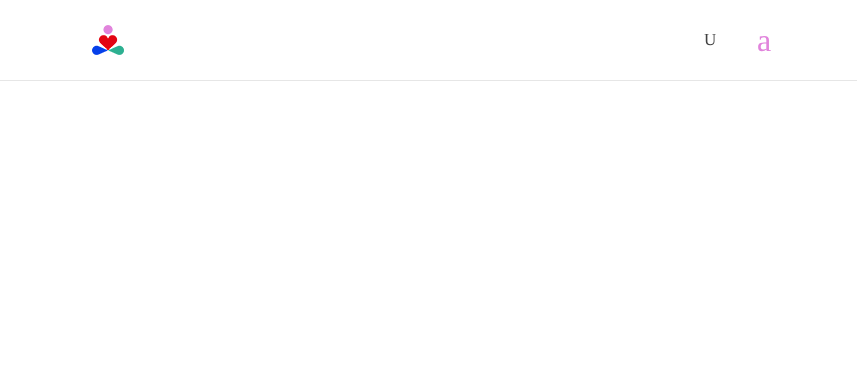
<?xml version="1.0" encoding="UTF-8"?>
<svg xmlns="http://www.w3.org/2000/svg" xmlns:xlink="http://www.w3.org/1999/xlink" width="857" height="380">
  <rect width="100%" height="100%" fill="#ffffff" />
  <rect y="80" width="857" height="1" fill="#e6e6e6" />
  <image x="92" y="25" width="32" height="30" xlink:href="image1.png" />
  <text x="704" y="45" style="font-family: Liberation Serif; font-size: 17px; fill: #424242">U</text>
  <text x="757" y="51" style="font-family: Liberation Serif; font-size: 32px; fill: #e184dc">a</text>
</svg>
